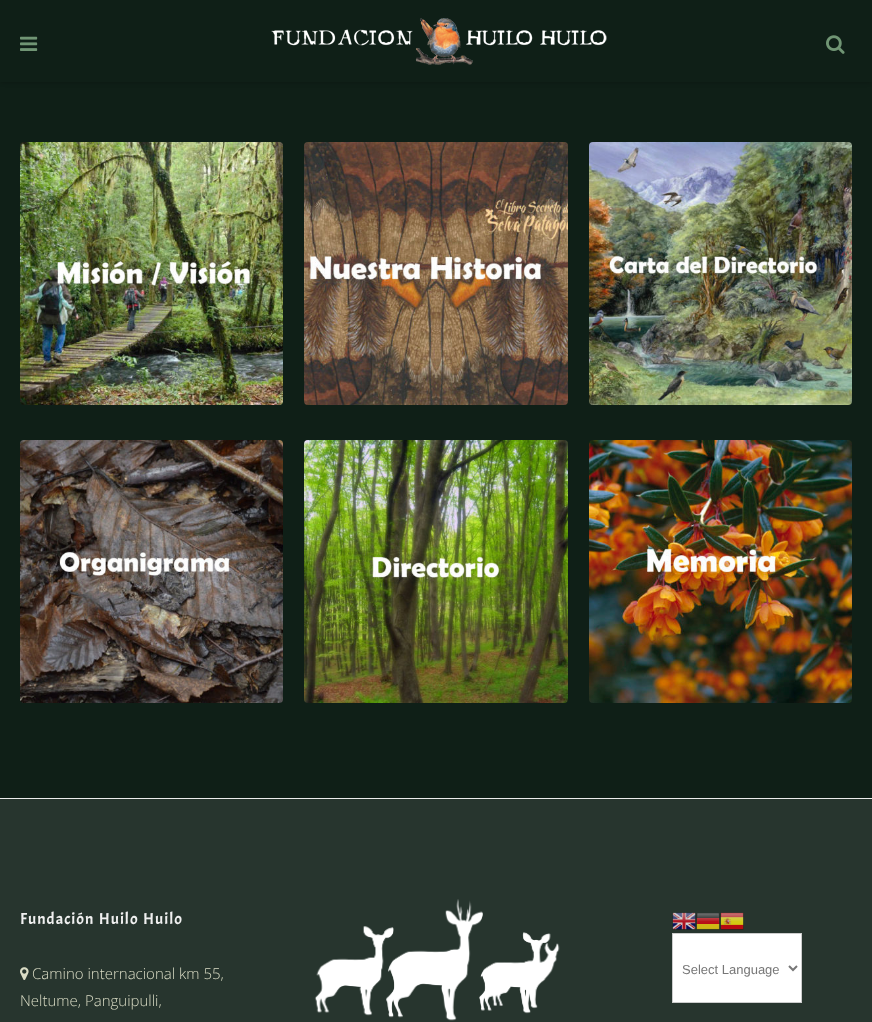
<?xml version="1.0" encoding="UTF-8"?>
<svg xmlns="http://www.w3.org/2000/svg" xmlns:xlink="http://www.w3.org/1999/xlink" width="872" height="1022">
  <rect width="100%" height="100%" fill="#27352e" />
  <rect y="82" width="872" height="716" fill="#0f1f17" />
  <rect width="872" height="82" fill="#000000" fill-opacity="0.25" filter="blur(2.5px)" />
  <rect width="872" height="82" fill="#0f1f17" />
  <image x="20" y="36" width="18" height="15" xlink:href="image1.png" />
  <image x="271" y="18" width="336" height="47" xlink:href="image2.png" />
  <image x="826" y="35" width="19" height="19" xlink:href="image3.png" />
  <image x="20" y="142" width="263" height="263" xlink:href="image4.png" />
  <image x="304" y="142" width="264" height="263" xlink:href="image5.png" />
  <image x="589" y="142" width="263" height="263" xlink:href="image6.png" />
  <image x="20" y="440" width="263" height="263" xlink:href="image7.png" />
  <image x="304" y="440" width="264" height="263" xlink:href="image8.png" />
  <image x="589" y="440" width="263" height="263" xlink:href="image9.png" />
  <rect y="798" width="872" height="1" fill="#ececec" />
  <image x="20" y="967" width="9" height="13" xlink:href="image10.png" />
  <image x="314" y="899" width="246" height="122" xlink:href="image11.png" />
  <image x="672" y="912" width="24" height="18" xlink:href="image12.png" />
  <image x="696" y="913" width="24" height="17" xlink:href="image13.png" />
  <image x="720" y="912" width="24" height="18" xlink:href="image14.png" />
  <rect x="672.5" y="933.5" width="129" height="69" fill="#ffffff" stroke="#cccccc" />
  <path d="M 789 966 l 4 4 l 4 -4" fill="none" stroke="#777777" stroke-width="2" />
  <text x="20" y="924" word-spacing="1" style="font-family: Acme; font-size: 16px; letter-spacing: 1px; fill: #f0f0f0">Fundación Huilo Huilo</text>
  <text x="32" y="979" style="font-family: Open Sans; font-size: 15px; font-weight: 300; fill: #dadcc5">Camino internacional km 55,</text>
  <text x="20" y="1006" style="font-family: Open Sans; font-size: 15px; font-weight: 300; fill: #dadcc5">Neltume, Panguipulli,</text>
  <text x="682" y="974" style="font-family: Liberation Sans; font-size: 13px; fill: #777777">Select Language</text>
</svg>
